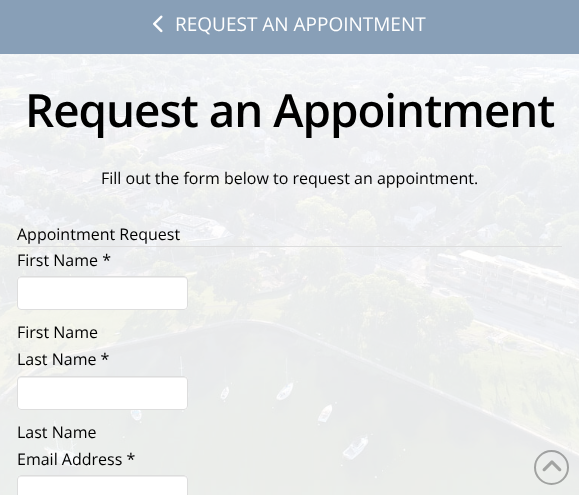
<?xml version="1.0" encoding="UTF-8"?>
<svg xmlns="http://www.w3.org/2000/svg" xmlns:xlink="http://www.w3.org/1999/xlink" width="579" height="495">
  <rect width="100%" height="100%" fill="#ffffff" />
  <rect width="579" height="54" fill="#889fb7" />
  <image x="153" y="15" width="10" height="18" xlink:href="image1.png" />
  <image x="0" y="54" width="579" height="441" xlink:href="image3.png" />
  <rect y="54" width="579" height="441" fill="#ffffff" fill-opacity="0.8" />
  <rect x="17" y="246" width="545" height="1" fill="#dddddd" />
  <rect x="17" y="276" width="171" height="34" rx="4" fill="#ffffff" />
  <path d="M 21 278 h 163 c 2 0 3 1 3 3 v -1 c 0 -2 -1 -3 -3 -3 h -163 c -2 0 -3 1 -3 3 v 1 c 0 -2 1 -3 3 -3 z" fill="#ececec" />
  <rect x="17.5" y="276.5" width="170" height="33" rx="3.5" fill="none" stroke="#dddddd" />
  <rect x="17" y="376" width="171" height="34" rx="4" fill="#ffffff" />
  <path d="M 21 378 h 163 c 2 0 3 1 3 3 v -1 c 0 -2 -1 -3 -3 -3 h -163 c -2 0 -3 1 -3 3 v 1 c 0 -2 1 -3 3 -3 z" fill="#ececec" />
  <rect x="17.5" y="376.5" width="170" height="33" rx="3.5" fill="none" stroke="#dddddd" />
  <rect x="17" y="475" width="171" height="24" rx="4" fill="#ffffff" />
  <path d="M 21 477 h 163 c 2 0 3 1 3 3 v -1 c 0 -2 -1 -3 -3 -3 h -163 c -2 0 -3 1 -3 3 v 1 c 0 -2 1 -3 3 -3 z" fill="#ececec" />
  <rect x="17.5" y="475.5" width="170" height="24" rx="3.5" fill="none" stroke="#dddddd" />
  <circle cx="551.5" cy="467.5" r="16.5" fill="none" stroke="#272727" stroke-opacity="0.38" stroke-width="2" />
  <image x="542" y="460" width="20" height="12" xlink:href="image2.png" />
  <text x="175" y="31" style="font-family: Open Sans; font-size: 19px; fill: #ffffff">REQUEST AN APPOINTMENT</text>
  <text x="25" y="127" style="font-family: Open Sans; font-size: 45.75px; font-weight: 600; letter-spacing: -1px; fill: #000000">Request an Appointment</text>
  <text x="101" y="184" style="font-family: Open Sans; font-size: 16px; fill: #000000">Fill out the form below to request an appointment.</text>
  <text x="17" y="240" style="font-family: Open Sans; font-size: 16px; fill: #000000">Appointment Request</text>
  <text x="17" y="266" style="font-family: Open Sans; font-size: 16px; fill: #000000">First Name *</text>
  <text x="17" y="338" style="font-family: Open Sans; font-size: 16px; fill: #000000">First Name</text>
  <text x="17" y="365" style="font-family: Open Sans; font-size: 16px; fill: #000000">Last Name *</text>
  <text x="17" y="438" style="font-family: Open Sans; font-size: 16px; fill: #000000">Last Name</text>
  <text x="17" y="465" style="font-family: Open Sans; font-size: 16px; fill: #000000">Email Address *</text>
</svg>
